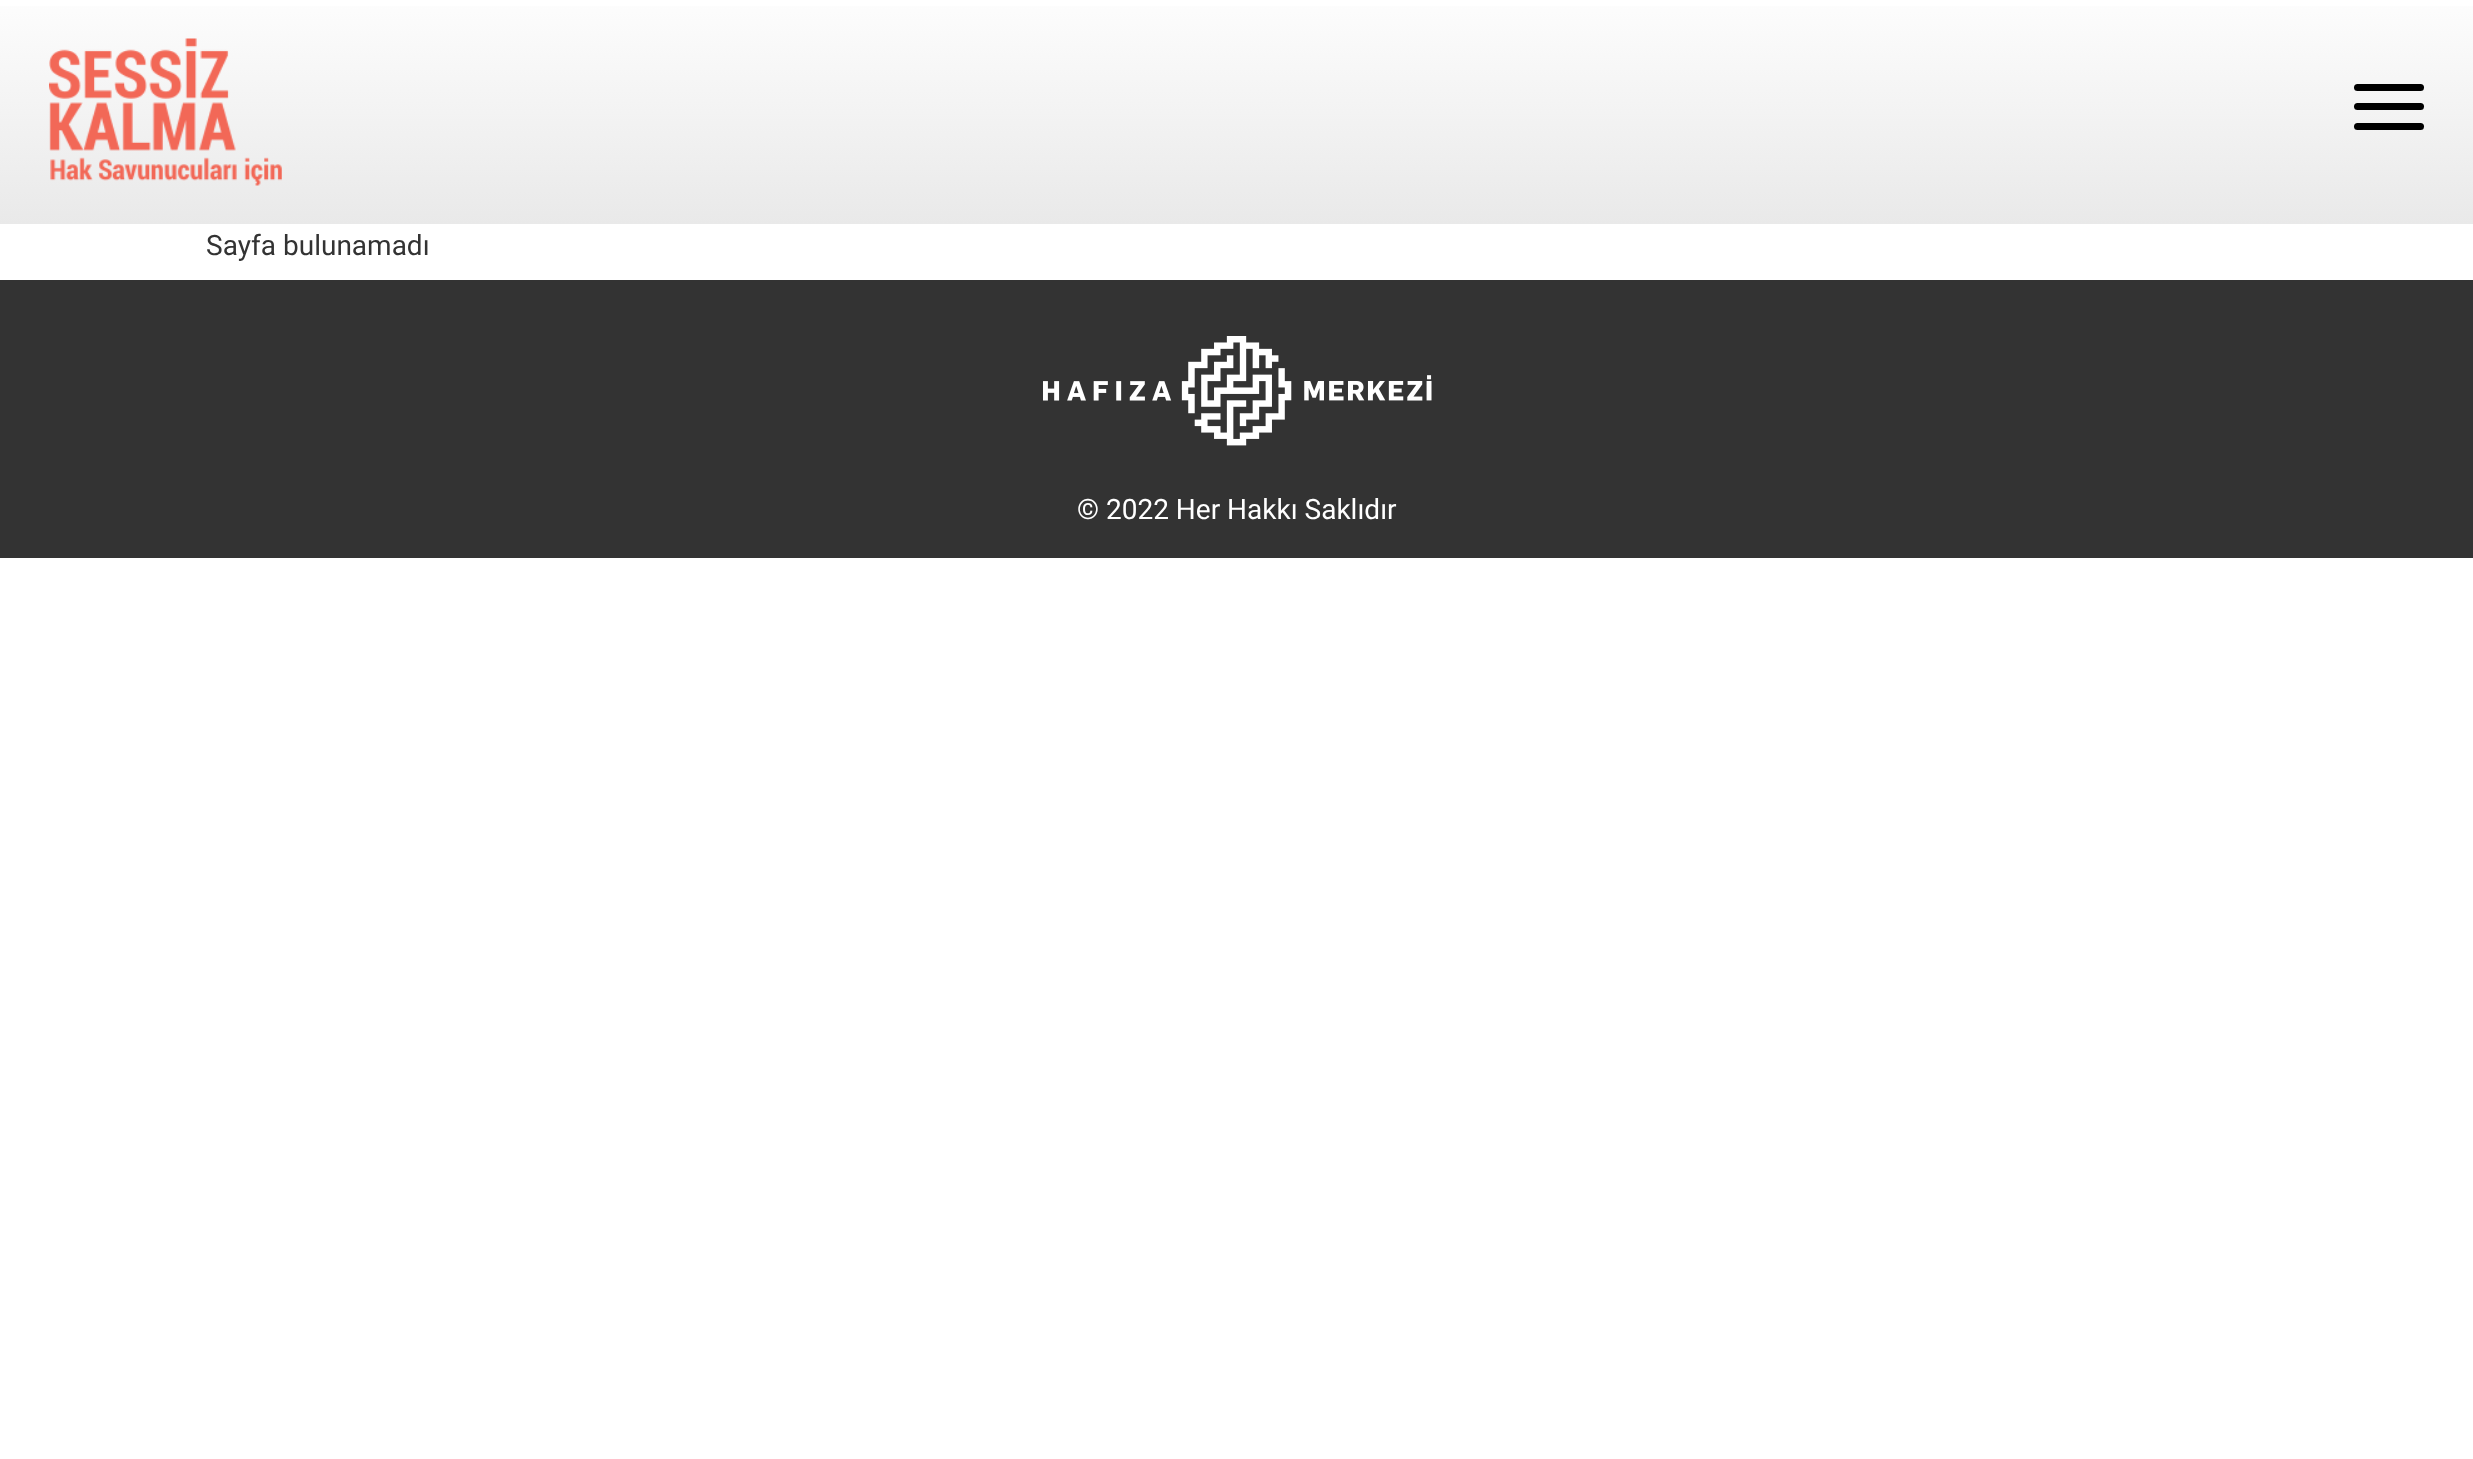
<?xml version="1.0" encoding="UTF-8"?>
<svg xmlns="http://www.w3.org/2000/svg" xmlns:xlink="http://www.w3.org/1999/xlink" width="2473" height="1459">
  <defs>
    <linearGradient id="g1" gradientUnits="userSpaceOnUse" x1="1237" y1="0" x2="1237" y2="224"><stop offset="0" stop-color="#fdfdfd" /><stop offset="1" stop-color="#e9e9e9" /></linearGradient>
  </defs>
  <rect width="100%" height="100%" fill="#ffffff" />
  <rect y="6" width="2473" height="218" fill="url(#g1)" />
  <image x="49" y="38" width="233" height="148" xlink:href="image1.png" />
  <rect x="2354" y="84" width="70" height="7" rx="3.5" fill="#000000" />
  <rect x="2354" y="103" width="70" height="7" rx="3.5" fill="#000000" />
  <rect x="2354" y="123" width="70" height="7" rx="3.5" fill="#000000" />
  <rect y="280" width="2473" height="278" fill="#333333" />
  <image x="1043" y="336" width="389" height="110" xlink:href="image2.png" />
  <text x="206" y="255" style="font-family: Roboto; font-size: 28px; fill: #333333">Sayfa bulunamadı</text>
  <text x="1077" y="519" style="font-family: Roboto; font-size: 28px; fill: #ffffff">© 2022 Her Hakkı Saklıdır</text>
</svg>
